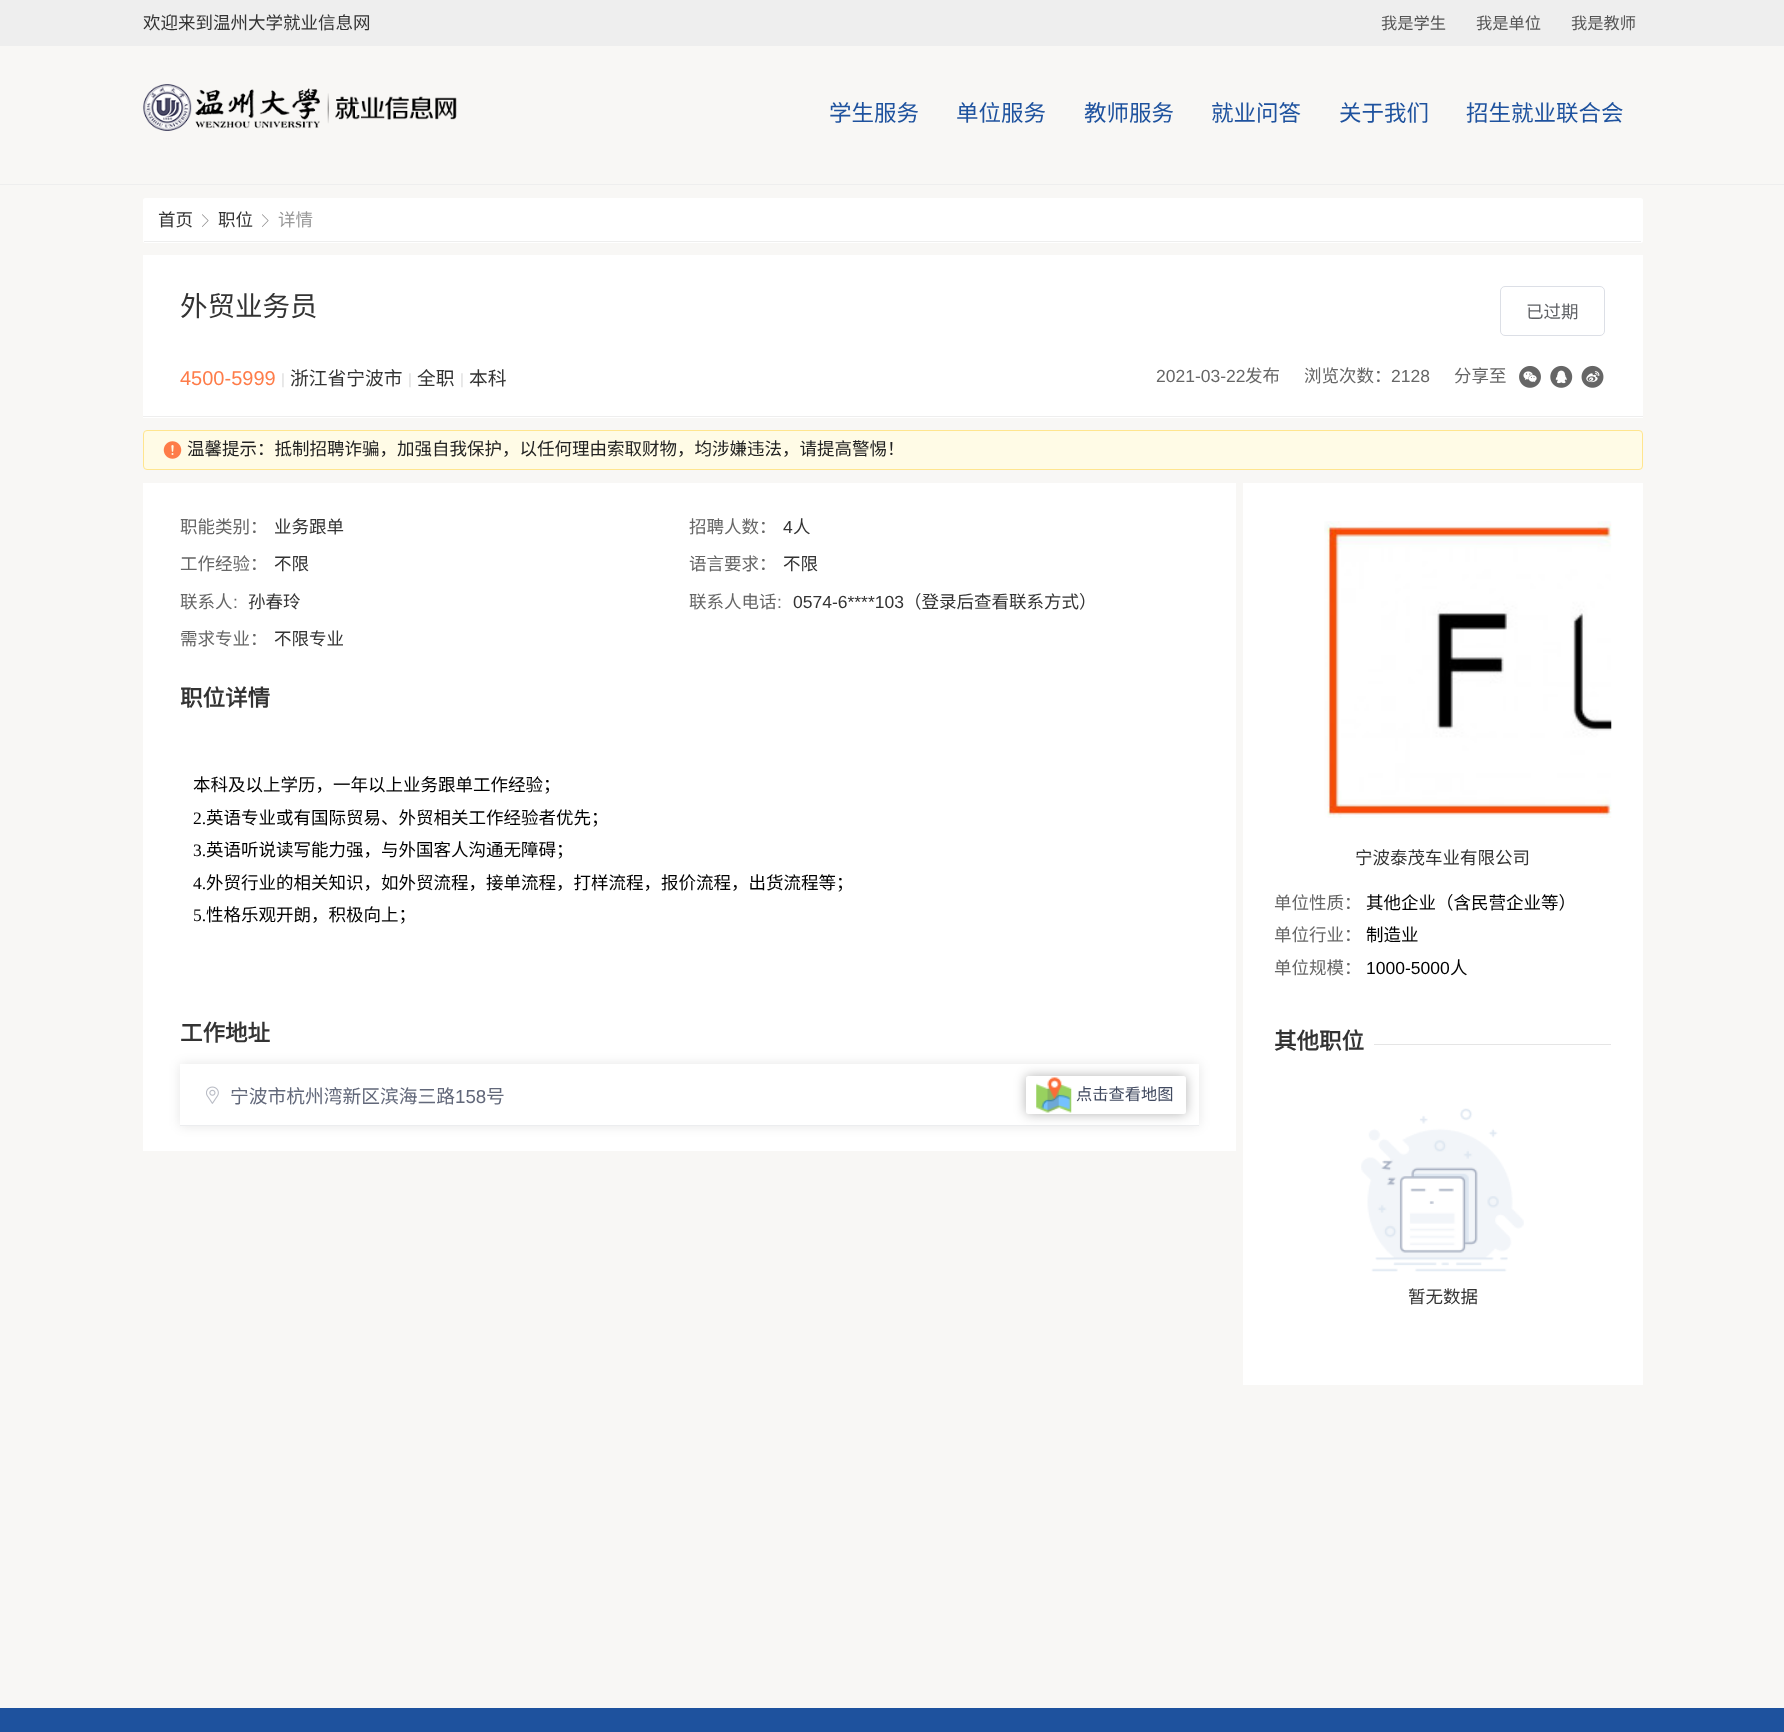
<?xml version="1.0" encoding="UTF-8"?>
<svg xmlns="http://www.w3.org/2000/svg" xmlns:xlink="http://www.w3.org/1999/xlink" width="1784" height="1732">
  <defs>
    <clipPath id="clip1"><path d="M 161 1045 h 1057 v 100 h -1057 z m 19 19 h 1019 v 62 h -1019 z" clip-rule="evenodd" /></clipPath>
  </defs>
  <rect width="100%" height="100%" fill="#f8f7f5" />
  <rect width="1784" height="46" fill="#eeeeee" />
  <rect y="184" width="1784" height="1" fill="#eeeeee" />
  <image x="143" y="84" width="314" height="47" xlink:href="image1.png" />
  <rect x="143" y="198" width="1500" height="45" rx="2.5" fill="#ffffff" />
  <rect x="144" y="241" width="1497" height="1" fill="#eeeeee" />
  <image x="202" y="214" width="7" height="13" xlink:href="image2.png" />
  <image x="262" y="214" width="7" height="13" xlink:href="image2.png" />
  <rect x="143" y="255" width="1500" height="163" fill="#ffffff" />
  <rect x="143" y="416" width="1500" height="1" fill="#eeeeee" />
  <rect x="1500.5" y="286.5" width="104" height="49" rx="4.5" fill="none" stroke="#dcdfe6" />
  <image x="1519" y="366" width="22" height="22" xlink:href="image3.png" />
  <image x="1550" y="365" width="23" height="23" xlink:href="image4.png" />
  <image x="1581" y="365" width="23" height="23" xlink:href="image5.png" />
  <rect x="143.5" y="430.5" width="1499" height="39" rx="3.5" fill="#fffbe6" stroke="#ffe58f" />
  <image x="163" y="441" width="19" height="18" xlink:href="image6.png" />
  <rect x="143" y="483" width="1093" height="668" fill="#ffffff" />
  <g clip-path="url(#clip1)">
    <rect x="180" y="1064" width="1019" height="62" fill="#000000" fill-opacity="0.1" filter="blur(6px)" />
  </g>
  <rect x="180" y="1125" width="1019" height="1" fill="#ecedef" />
  <image x="206" y="1086" width="13" height="18" xlink:href="image7.png" />
  <rect x="1026" y="1076" width="160" height="38" rx="2.5" fill="#000000" fill-opacity="0.3" filter="blur(6px)" />
  <rect x="1026" y="1076" width="160" height="38" rx="2.5" fill="#ffffff" />
  <image x="1036" y="1077" width="36" height="36" xlink:href="image8.png" />
  <rect x="1243" y="483" width="400" height="902" fill="#ffffff" />
  <image x="1324" y="521" width="288" height="297" xlink:href="image9.png" />
  <rect x="1374" y="1044" width="237" height="1" fill="#e5e5e5" />
  <image x="1361" y="1108" width="163" height="164" xlink:href="image10.png" />
  <rect y="1708" width="1784" height="24" fill="#1e529e" />
  <text x="143" y="29" style="font-family: Noto Sans CJK SC; font-size: 17.5px; fill: #333333">欢迎来到温州大学就业信息网</text>
  <text x="1381" y="29" style="font-family: Noto Sans CJK SC; font-size: 16.25px; fill: #555555">我是学生</text>
  <text x="1476" y="29" style="font-family: Noto Sans CJK SC; font-size: 16.25px; fill: #555555">我是单位</text>
  <text x="1571" y="29" style="font-family: Noto Sans CJK SC; font-size: 16.25px; fill: #555555">我是教师</text>
  <text x="829" y="121" style="font-family: Noto Sans CJK SC; font-size: 22.5px; fill: #1e529e">学生服务</text>
  <text x="956" y="121" style="font-family: Noto Sans CJK SC; font-size: 22.5px; fill: #1e529e">单位服务</text>
  <text x="1084" y="121" style="font-family: Noto Sans CJK SC; font-size: 22.5px; fill: #1e529e">教师服务</text>
  <text x="1211" y="121" style="font-family: Noto Sans CJK SC; font-size: 22.5px; fill: #1e529e">就业问答</text>
  <text x="1339" y="121" style="font-family: Noto Sans CJK SC; font-size: 22.5px; fill: #1e529e">关于我们</text>
  <text x="1466" y="121" style="font-family: Noto Sans CJK SC; font-size: 22.5px; fill: #1e529e">招生就业联合会</text>
  <text x="158" y="226" style="font-family: Noto Sans CJK SC; font-size: 17.5px; fill: #333333">首页</text>
  <text x="218" y="226" style="font-family: Noto Sans CJK SC; font-size: 17.5px; fill: #333333">职位</text>
  <text x="278" y="226" style="font-family: Noto Sans CJK SC; font-size: 17.5px; fill: #999999">详情</text>
  <text x="180" y="316" style="font-family: Noto Sans CJK SC; font-size: 27.5px; fill: #333333">外贸业务员</text>
  <text x="180" y="385" style="font-family: Liberation Sans; font-size: 20px; fill: #fe7c49">4500-5999</text>
  <text x="281" y="384" style="font-family: Liberation Sans; font-size: 15px; fill: #dddddd">|</text>
  <text x="290" y="385" style="font-family: Noto Sans CJK SC; font-size: 18.75px; fill: #333333">浙江省宁波市</text>
  <text x="408" y="384" style="font-family: Liberation Sans; font-size: 15px; fill: #dddddd">|</text>
  <text x="417" y="385" style="font-family: Noto Sans CJK SC; font-size: 18.75px; fill: #333333">全职</text>
  <text x="460" y="384" style="font-family: Liberation Sans; font-size: 15px; fill: #dddddd">|</text>
  <text x="469" y="385" style="font-family: Noto Sans CJK SC; font-size: 18.75px; fill: #333333">本科</text>
  <text x="1526" y="318" style="font-family: Noto Sans CJK SC; font-size: 17.5px; fill: #606266">已过期</text>
  <text x="1156" y="382" style="font-family: Liberation Sans; font-size: 17.5px; fill: #666666">2021-03-22</text>
  <text x="1245" y="382" style="font-family: Noto Sans CJK SC; font-size: 17.5px; fill: #666666">发布</text>
  <text x="1304" y="382" style="font-family: Noto Sans CJK SC; font-size: 17.5px; fill: #666666">浏览次数：</text>
  <text x="1391" y="382" style="font-family: Liberation Sans; font-size: 17.5px; fill: #666666">2128</text>
  <text x="1454" y="382" style="font-family: Noto Sans CJK SC; font-size: 17.5px; fill: #666666">分享至</text>
  <text x="187" y="455" style="font-family: Noto Sans CJK SC; font-size: 17.5px; fill: #222222">温馨提示：抵制招聘诈骗，加强自我保护，以任何理由索取财物，均涉嫌违法，请提高警惕！</text>
  <text x="180" y="533" style="font-family: Noto Sans CJK SC; font-size: 17.5px; fill: #666666">职能类别：</text>
  <text x="274" y="533" style="font-family: Noto Sans CJK SC; font-size: 17.5px; fill: #333333">业务跟单</text>
  <text x="689" y="533" style="font-family: Noto Sans CJK SC; font-size: 17.5px; fill: #666666">招聘人数：</text>
  <text x="783" y="533" style="font-family: Liberation Sans; font-size: 17.5px; fill: #333333">4</text>
  <text x="793" y="533" style="font-family: Noto Sans CJK SC; font-size: 17.5px; fill: #333333">人</text>
  <text x="180" y="570" style="font-family: Noto Sans CJK SC; font-size: 17.5px; fill: #666666">工作经验：</text>
  <text x="274" y="570" style="font-family: Noto Sans CJK SC; font-size: 17.5px; fill: #333333">不限</text>
  <text x="689" y="570" style="font-family: Noto Sans CJK SC; font-size: 17.5px; fill: #666666">语言要求：</text>
  <text x="783" y="570" style="font-family: Noto Sans CJK SC; font-size: 17.5px; fill: #333333">不限</text>
  <text x="180" y="608" style="font-family: Noto Sans CJK SC; font-size: 17.5px; fill: #666666">联系人</text>
  <text x="233" y="608" style="font-family: Liberation Sans; font-size: 17.5px; fill: #666666">:</text>
  <text x="248" y="608" style="font-family: Noto Sans CJK SC; font-size: 17.5px; fill: #333333">孙春玲</text>
  <text x="689" y="608" style="font-family: Noto Sans CJK SC; font-size: 17.5px; fill: #666666">联系人电话</text>
  <text x="777" y="608" style="font-family: Liberation Sans; font-size: 17.5px; fill: #666666">:</text>
  <text x="793" y="608" style="font-family: Liberation Sans; font-size: 17.5px; fill: #333333">0574-6****103</text>
  <text x="904" y="608" style="font-family: Noto Sans CJK SC; font-size: 17.5px; fill: #333333">（登录后查看联系方式）</text>
  <text x="180" y="645" style="font-family: Noto Sans CJK SC; font-size: 17.5px; fill: #666666">需求专业：</text>
  <text x="274" y="645" style="font-family: Noto Sans CJK SC; font-size: 17.5px; fill: #333333">不限专业</text>
  <text x="180" y="706" style="font-family: Noto Sans CJK SC; font-size: 22.5px; font-weight: bold; fill: #333333">职位详情</text>
  <text x="193" y="791" style="font-family: Noto Sans CJK SC; font-size: 17.5px; fill: #000000">本科及以上学历，一年以上业务跟单工作经验；</text>
  <text x="193" y="824" style="font-family: Liberation Serif; font-size: 17.5px; fill: #000000">2.</text>
  <text x="206" y="824" style="font-family: Noto Sans CJK SC; font-size: 17.5px; fill: #000000">英语专业或有国际贸易、外贸相关工作经验者优先；</text>
  <text x="193" y="856" style="font-family: Liberation Serif; font-size: 17.5px; fill: #000000">3.</text>
  <text x="206" y="856" style="font-family: Noto Sans CJK SC; font-size: 17.5px; fill: #000000">英语听说读写能力强，与外国客人沟通无障碍；</text>
  <text x="193" y="889" style="font-family: Liberation Serif; font-size: 17.5px; fill: #000000">4.</text>
  <text x="206" y="889" style="font-family: Noto Sans CJK SC; font-size: 17.5px; fill: #000000">外贸行业的相关知识，如外贸流程，接单流程，打样流程，报价流程，出货流程等；</text>
  <text x="193" y="921" style="font-family: Liberation Serif; font-size: 17.5px; fill: #000000">5.</text>
  <text x="206" y="921" style="font-family: Noto Sans CJK SC; font-size: 17.5px; fill: #000000">性格乐观开朗，积极向上；</text>
  <text x="180" y="1041" style="font-family: Noto Sans CJK SC; font-size: 22.5px; font-weight: bold; fill: #333333">工作地址</text>
  <text x="230" y="1103" style="font-family: Noto Sans CJK SC; font-size: 18.75px; fill: #62687a">宁波市杭州湾新区滨海三路</text>
  <text x="455" y="1103" style="font-family: Liberation Sans; font-size: 18.75px; fill: #62687a">158</text>
  <text x="486" y="1103" style="font-family: Noto Sans CJK SC; font-size: 18.75px; fill: #62687a">号</text>
  <text x="1076" y="1100" style="font-family: Noto Sans CJK SC; font-size: 16.25px; fill: #414a60">点击查看地图</text>
  <text x="1355" y="864" style="font-family: Noto Sans CJK SC; font-size: 17.5px; fill: #333333">宁波泰茂车业有限公司</text>
  <text x="1274" y="909" style="font-family: Noto Sans CJK SC; font-size: 17.5px; fill: #666666">单位性质：</text>
  <text x="1366" y="909" style="font-family: Noto Sans CJK SC; font-size: 17.5px; fill: #000000">其他企业（含民营企业等）</text>
  <text x="1274" y="941" style="font-family: Noto Sans CJK SC; font-size: 17.5px; fill: #666666">单位行业：</text>
  <text x="1366" y="941" style="font-family: Noto Sans CJK SC; font-size: 17.5px; fill: #000000">制造业</text>
  <text x="1274" y="974" style="font-family: Noto Sans CJK SC; font-size: 17.5px; fill: #666666">单位规模：</text>
  <text x="1366" y="974" style="font-family: Liberation Sans; font-size: 17.5px; fill: #000000">1000-5000</text>
  <text x="1450" y="974" style="font-family: Noto Sans CJK SC; font-size: 17.5px; fill: #000000">人</text>
  <text x="1274" y="1049" style="font-family: Noto Sans CJK SC; font-size: 22.5px; font-weight: bold; fill: #333333">其他职位</text>
  <text x="1408" y="1303" style="font-family: Noto Sans CJK SC; font-size: 17.5px; fill: #333333">暂无数据</text>
</svg>
